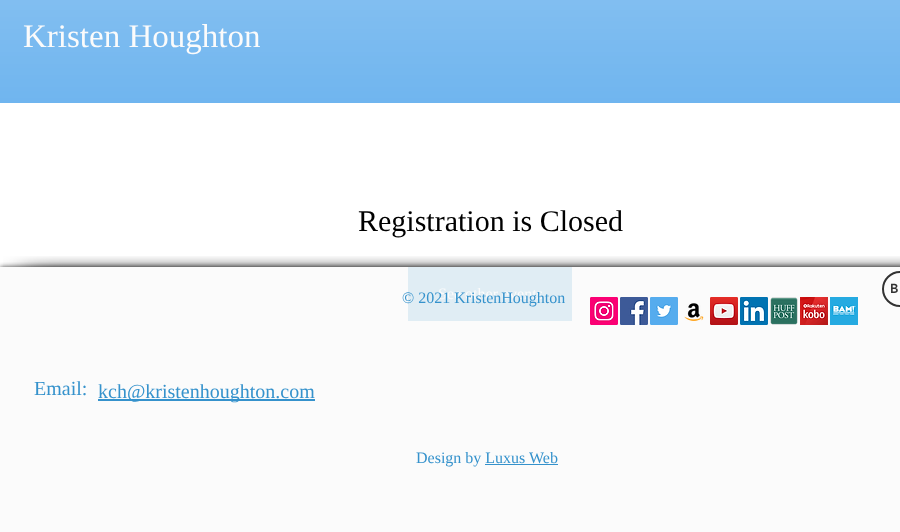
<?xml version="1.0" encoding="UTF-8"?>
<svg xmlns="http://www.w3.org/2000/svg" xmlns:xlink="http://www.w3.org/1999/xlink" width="900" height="532">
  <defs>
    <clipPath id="clip1"><rect x="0" y="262" width="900" height="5" /></clipPath>
  </defs>
  <rect width="100%" height="100%" fill="#ffffff" />
  <rect y="267" width="900" height="265" fill="#fbfbfb" />
  <rect width="900" height="103" fill="#56a8ec" />
  <image x="0" y="0" width="900" height="103" xlink:href="image1.png" />
  <rect x="408" y="267" width="164" height="54" fill="#e0edf4" />
  <g clip-path="url(#clip1)">
    <rect y="267" width="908" height="265" fill="#000000" fill-opacity="0.7" filter="blur(2.5px)" />
  </g>
  <image x="3" y="256" width="97" height="11" xlink:href="image2.png" />
  <image x="100" y="256" width="780" height="11" xlink:href="image3.png" />
  <image x="880" y="256" width="20" height="11" xlink:href="image4.png" />
  <rect x="883" y="272" width="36" height="34" rx="17" fill="none" stroke="#323232" stroke-width="2" />
  <image x="590" y="297" width="28" height="28" xlink:href="image5.png" />
  <image x="620" y="297" width="28" height="28" xlink:href="image6.png" />
  <image x="650" y="297" width="28" height="28" xlink:href="image7.png" />
  <image x="684" y="303" width="20" height="18" xlink:href="image8.png" />
  <image x="710" y="297" width="28" height="28" xlink:href="image9.png" />
  <image x="740" y="297" width="28" height="28" xlink:href="image10.png" />
  <image x="770" y="297" width="28" height="28" xlink:href="image11.png" />
  <image x="800" y="297" width="28" height="28" xlink:href="image12.png" />
  <image x="830" y="297" width="28" height="28" xlink:href="image13.png" />
  <rect x="98" y="399" width="217" height="2" fill="#3592cc" />
  <rect x="485" y="464" width="73" height="1" fill="#3592cc" />
  <text x="23" y="47" style="font-family: Liberation Serif; font-size: 33px; fill: #fbfbfb">Kristen Houghton</text>
  <text x="358" y="231" style="font-family: Liberation Serif; font-size: 30px; fill: #000000">Registration is Closed</text>
  <text x="438" y="299" style="font-family: Liberation Serif; font-size: 16px; fill: #fbfbfb">See other events</text>
  <text x="890" y="293" style="font-family: 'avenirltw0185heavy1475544'; font-size: 13px; font-weight: 900; fill: #323232">B</text>
  <text x="402" y="303" style="font-family: Liberation Serif; font-size: 16px; fill: #3592cc">© 2021 KristenHoughton</text>
  <text x="34" y="395" style="font-family: Liberation Serif; font-size: 20px; fill: #3592cc">Email:</text>
  <text x="98" y="398" style="font-family: Liberation Serif; font-size: 20px; fill: #3592cc">kch@kristenhoughton.com</text>
  <text x="416" y="463" style="font-family: Liberation Serif; font-size: 16px; fill: #3592cc">Design by Luxus Web</text>
</svg>
